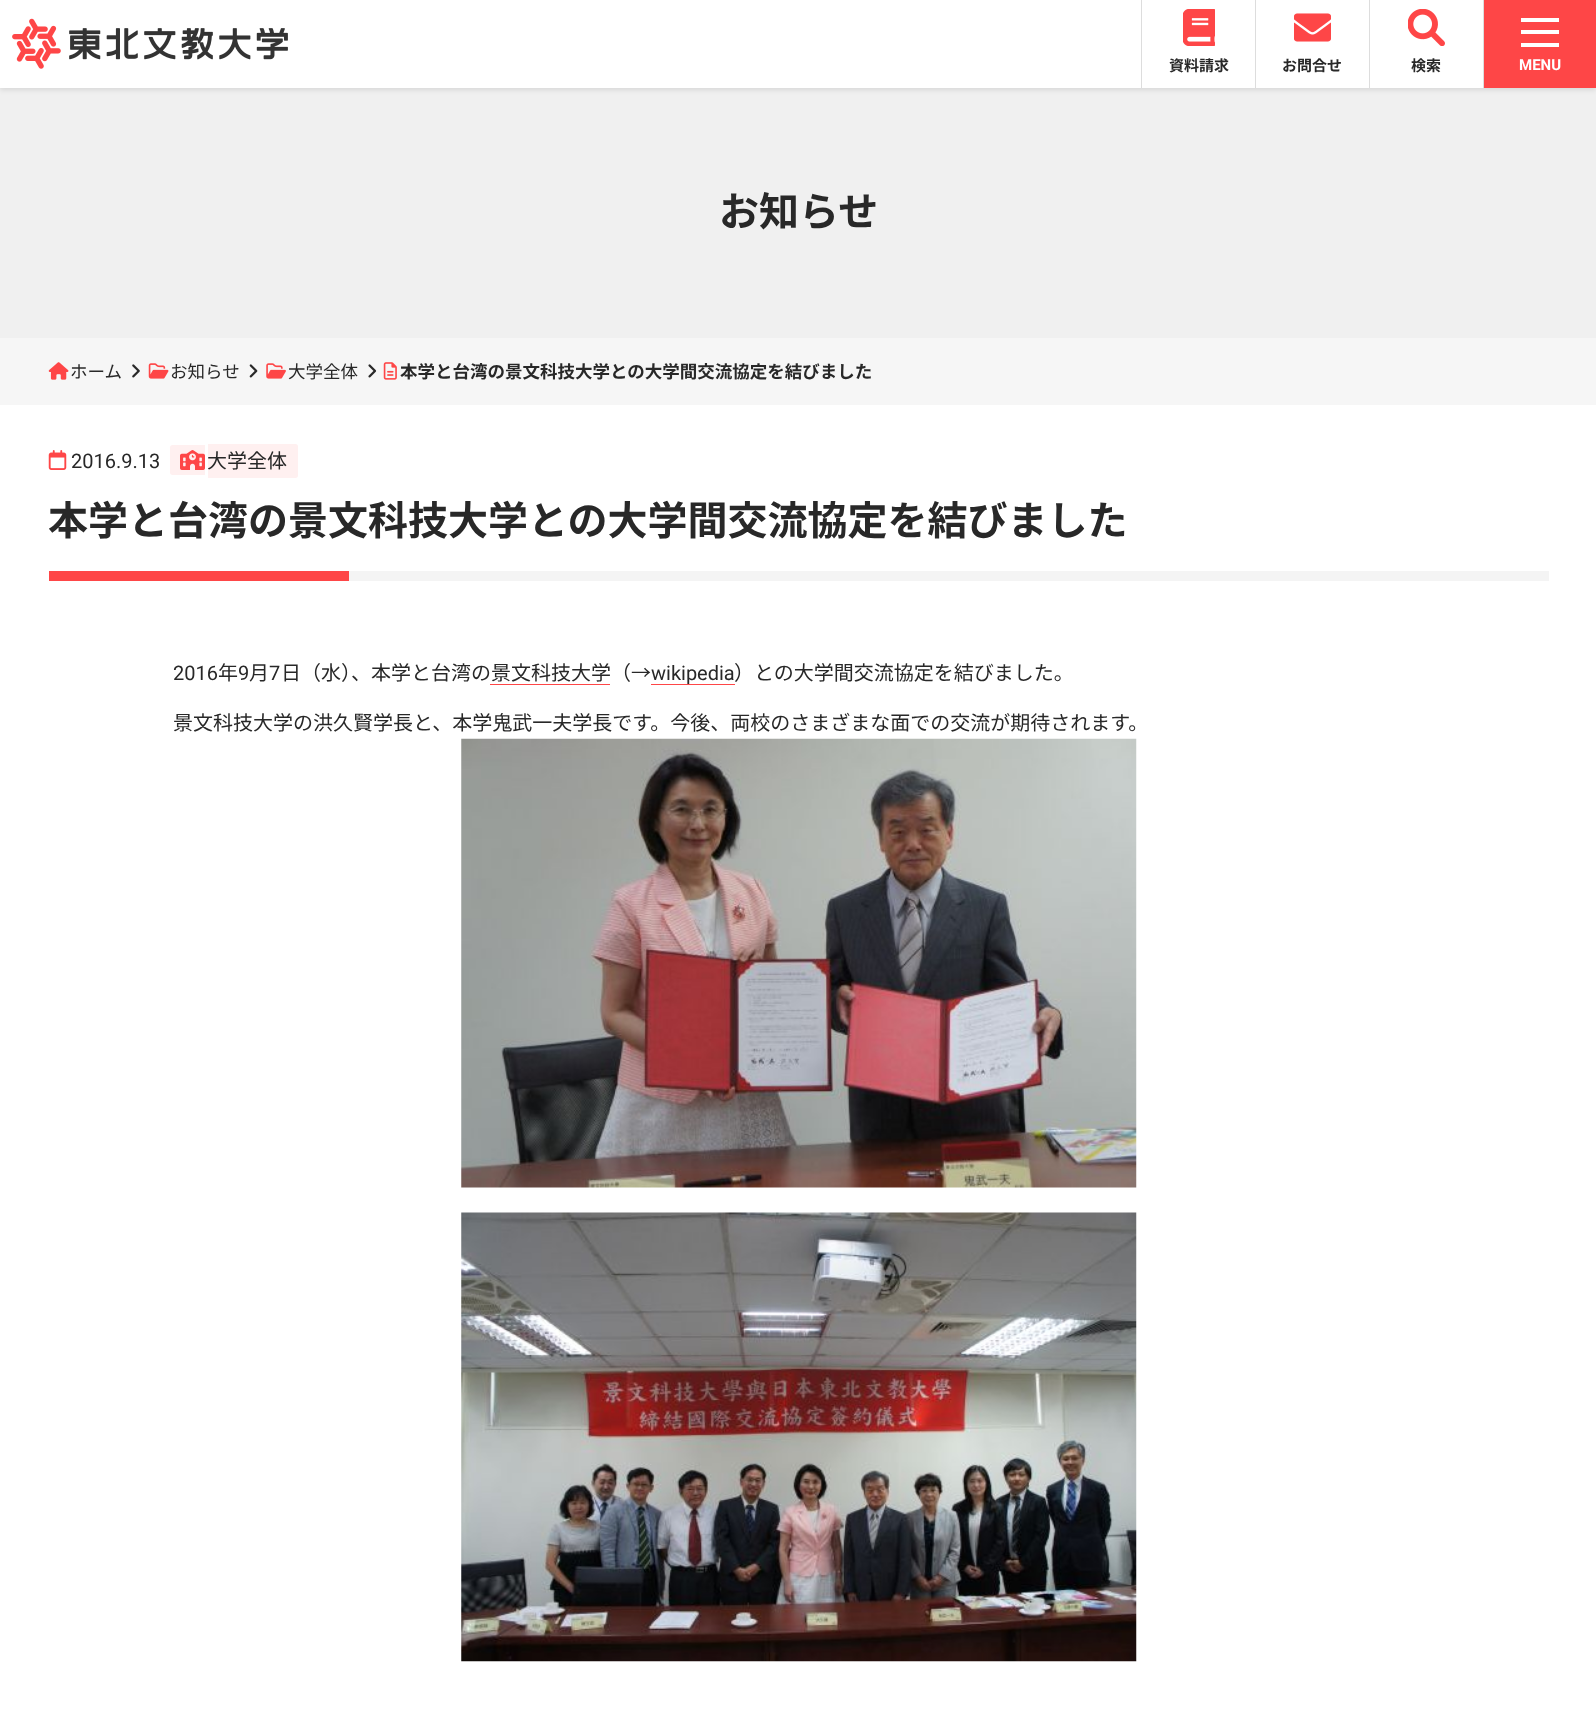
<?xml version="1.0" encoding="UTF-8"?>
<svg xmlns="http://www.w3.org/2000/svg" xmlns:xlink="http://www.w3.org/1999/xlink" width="1596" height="1711">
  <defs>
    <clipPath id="clip1"><path d="M 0 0 h 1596 v 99 h -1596 z m 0 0 h 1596 v 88 h -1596 z" clip-rule="evenodd" /></clipPath>
  </defs>
  <rect width="100%" height="100%" fill="#ffffff" />
  <rect y="88" width="1596" height="250" fill="#f0f0f0" />
  <g clip-path="url(#clip1)">
    <rect y="3" width="1596" height="87" fill="#000000" fill-opacity="0.1" filter="blur(2.5px)" />
  </g>
  <rect y="87" width="1483" height="1" fill="#ffffff" fill-opacity="0.9" />
  <image x="12" y="18" width="276" height="51" xlink:href="image1.png" />
  <rect x="1141" width="1" height="88" fill="#dddddd" />
  <image x="1183" y="9" width="32" height="37" xlink:href="image2.png" />
  <rect x="1255" width="1" height="88" fill="#dddddd" />
  <image x="1294" y="13" width="37" height="29" xlink:href="image3.png" />
  <rect x="1483" width="1" height="88" fill="#dddddd" />
  <rect x="1369" width="1" height="88" fill="#dddddd" />
  <image x="1408" y="9" width="37" height="37" xlink:href="image4.png" />
  <rect x="1484" width="112" height="88" fill="#fe4647" />
  <rect x="1521" y="18" width="38" height="4" fill="#ffffff" />
  <rect x="1521" y="30" width="38" height="4" fill="#ffffff" />
  <rect x="1521" y="43" width="38" height="4" fill="#ffffff" />
  <rect y="338" width="1596" height="67" fill="#f6f6f6" />
  <image x="48" y="362" width="21" height="18" xlink:href="image5.png" />
  <image x="132" y="364" width="8" height="14" xlink:href="image6.png" />
  <image x="148" y="363" width="21" height="16" xlink:href="image7.png" />
  <image x="249" y="364" width="9" height="14" xlink:href="image8.png" />
  <image x="266" y="363" width="20" height="16" xlink:href="image9.png" />
  <image x="368" y="364" width="9" height="14" xlink:href="image10.png" />
  <image x="383" y="362" width="14" height="18" xlink:href="image11.png" />
  <image x="48" y="450" width="19" height="20" xlink:href="image12.png" />
  <path d="M 172.5 445 h 32.5 v 30 h -32.5 c -1.5 0 -2.5 -1 -2.5 -2.5 v -25 c 0 -1.5 1 -2.5 2.5 -2.5 z" fill="#fff0f0" />
  <image x="180" y="450" width="25" height="20" xlink:href="image13.png" />
  <path d="M 208 444 h 87.5 c 1.5 0 2.5 1 2.5 2.5 v 29 c 0 1.5 -1 2.5 -2.5 2.5 h -87.5 z" fill="#fff0f0" />
  <rect x="49" y="571" width="300" height="10" fill="#fe4647" />
  <rect x="349" y="571" width="1200" height="10" fill="#f4f4f4" />
  <rect x="490" y="684" width="120" height="1" fill="#fe4647" />
  <rect x="651" y="684" width="84" height="1" fill="#fe4647" />
  <image x="461" y="738" width="676" height="450" xlink:href="image14.png" />
  <image x="461" y="1212" width="676" height="450" xlink:href="image15.png" />
  <text x="1169" y="71" style="font-family: Noto Sans JP; font-size: 15px; font-weight: bold; fill: #282828">資料請求</text>
  <text x="1282" y="71" style="font-family: Noto Sans JP; font-size: 15px; font-weight: bold; fill: #282828">お問合せ</text>
  <text x="1411" y="71" style="font-family: Noto Sans JP; font-size: 15px; font-weight: bold; fill: #282828">検索</text>
  <text x="1519" y="70" style="font-family: Roboto; font-size: 15px; font-weight: bold; fill: #ffffff">MENU</text>
  <text x="719" y="226" style="font-family: Noto Sans JP; font-size: 40px; font-weight: bold; fill: #282828">お知らせ</text>
  <text x="70" y="378" style="font-family: Noto Sans JP; font-size: 17.5px; fill: #282828">ホーム</text>
  <text x="170" y="378" style="font-family: Noto Sans JP; font-size: 17.5px; fill: #282828">お知らせ</text>
  <text x="288" y="378" style="font-family: Noto Sans JP; font-size: 17.5px; fill: #282828">大学全体</text>
  <text x="400" y="378" style="font-family: Noto Sans JP; font-size: 17.5px; font-weight: bold; fill: #282828">本学と台湾の景文科技大学との大学間交流協定を結びました</text>
  <text x="71" y="468" style="font-family: Roboto; font-size: 20px; fill: #282828">2016.9.13</text>
  <text x="207" y="468" style="font-family: Noto Sans JP; font-size: 20px; fill: #282828">大学全体</text>
  <text x="48" y="535" style="font-family: Noto Sans JP; font-size: 40px; font-weight: bold; fill: #282828">本学と台湾の景文科技大学との大学間交流協定を結びました</text>
  <text x="173" y="680" style="font-family: Roboto; font-size: 20px; fill: #282828">2016</text>
  <text x="218" y="680" style="font-family: Noto Sans JP; font-size: 20px; fill: #282828">年</text>
  <text x="238" y="680" style="font-family: Roboto; font-size: 20px; fill: #282828">9</text>
  <text x="249" y="680" style="font-family: Noto Sans JP; font-size: 20px; fill: #282828">月</text>
  <text x="269" y="680" style="font-family: Roboto; font-size: 20px; fill: #282828">7</text>
  <text x="281" y="680" style="font-family: Noto Sans JP; font-size: 20px; fill: #282828">日（水）、本学と台湾の</text>
  <text x="491" y="680" style="font-family: Noto Sans JP; font-size: 20px; fill: #282828">景文科技大学（→</text>
  <text x="651" y="680" style="font-family: Roboto; font-size: 20px; fill: #282828">wikipedia</text>
  <text x="734" y="680" style="font-family: Noto Sans JP; font-size: 20px; fill: #282828">）との大学間交流協定を結びました。</text>
  <text x="173" y="730" style="font-family: Noto Sans JP; font-size: 20px; fill: #282828">景文科技大学の洪久賢学長と、本学鬼武一夫学長です。今後、両校のさまざまな面での交流が期待されます。</text>
</svg>
